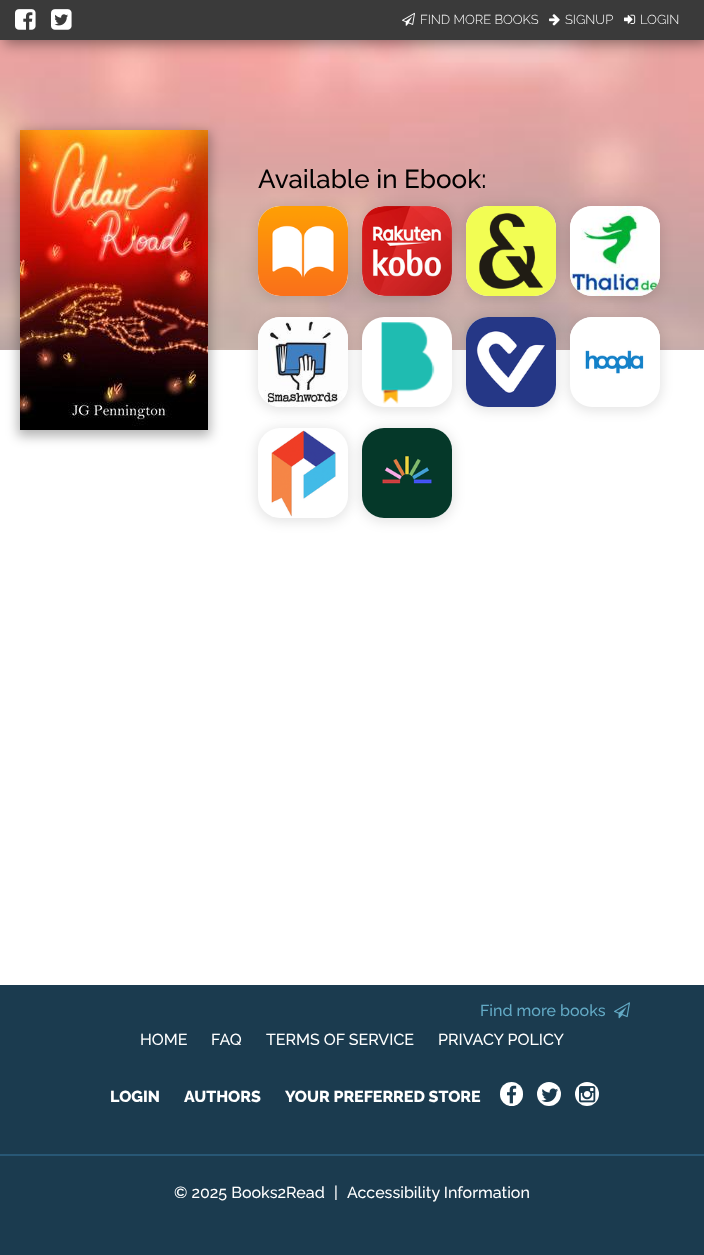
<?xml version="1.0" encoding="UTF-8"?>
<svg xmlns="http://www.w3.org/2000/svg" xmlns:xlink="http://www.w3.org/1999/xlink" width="704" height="1255">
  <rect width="100%" height="100%" fill="#ffffff" />
  <image x="0" y="40" width="704" height="310" xlink:href="image1.png" />
  <rect x="4" y="4" width="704" height="40" fill="#000000" fill-opacity="0.4" filter="blur(7px)" />
  <rect width="704" height="40" fill="#3a3a3a" />
  <image x="15" y="9" width="21" height="21" xlink:href="image2.png" />
  <image x="51" y="9" width="21" height="21" xlink:href="image3.png" />
  <image x="402" y="12" width="13" height="14" xlink:href="image4.png" />
  <image x="549" y="14" width="11" height="12" xlink:href="image5.png" />
  <image x="624" y="14" width="12" height="10" xlink:href="image6.png" />
  <rect x="18" y="132" width="192" height="304" fill="#000000" fill-opacity="0.3" filter="blur(6px)" />
  <image x="20" y="130" width="188" height="300" xlink:href="image7.png" />
  <rect x="256" y="206" width="94" height="94" rx="24" fill="#000000" fill-opacity="0.1" filter="blur(6px)" />
  <rect x="258" y="206" width="90" height="90" rx="22" fill="#ffffff" />
  <image x="258" y="206" width="90" height="90" xlink:href="image8.png" />
  <rect x="360" y="206" width="94" height="94" rx="24" fill="#000000" fill-opacity="0.1" filter="blur(6px)" />
  <rect x="362" y="206" width="90" height="90" rx="22" fill="#ffffff" />
  <image x="362" y="206" width="90" height="90" xlink:href="image9.png" />
  <rect x="464" y="206" width="94" height="94" rx="24" fill="#000000" fill-opacity="0.1" filter="blur(6px)" />
  <rect x="466" y="206" width="90" height="90" rx="22" fill="#ffffff" />
  <image x="466" y="206" width="90" height="90" xlink:href="image10.png" />
  <rect x="568" y="206" width="94" height="94" rx="24" fill="#000000" fill-opacity="0.1" filter="blur(6px)" />
  <rect x="570" y="206" width="90" height="90" rx="22" fill="#ffffff" />
  <image x="570" y="206" width="90" height="90" xlink:href="image11.png" />
  <rect x="256" y="317" width="94" height="94" rx="24" fill="#000000" fill-opacity="0.1" filter="blur(6px)" />
  <rect x="258" y="317" width="90" height="90" rx="22" fill="#ffffff" />
  <image x="258" y="317" width="90" height="90" xlink:href="image12.png" />
  <rect x="360" y="317" width="94" height="94" rx="24" fill="#000000" fill-opacity="0.1" filter="blur(6px)" />
  <rect x="362" y="317" width="90" height="90" rx="22" fill="#ffffff" />
  <rect x="464" y="317" width="94" height="94" rx="24" fill="#000000" fill-opacity="0.1" filter="blur(6px)" />
  <rect x="466" y="317" width="90" height="90" rx="22" fill="#ffffff" />
  <image x="466" y="317" width="90" height="90" xlink:href="image13.png" />
  <rect x="568" y="317" width="94" height="94" rx="24" fill="#000000" fill-opacity="0.1" filter="blur(6px)" />
  <rect x="570" y="317" width="90" height="90" rx="22" fill="#ffffff" />
  <image x="381" y="322" width="54" height="82" xlink:href="image14.png" />
  <image x="570" y="317" width="90" height="57" xlink:href="image15.png" />
  <rect x="256" y="428" width="94" height="94" rx="24" fill="#000000" fill-opacity="0.1" filter="blur(6px)" />
  <rect x="258" y="428" width="90" height="90" rx="22" fill="#ffffff" />
  <rect x="360" y="428" width="94" height="94" rx="24" fill="#000000" fill-opacity="0.1" filter="blur(6px)" />
  <rect x="362" y="428" width="90" height="90" rx="22" fill="#ffffff" />
  <image x="271" y="430" width="65" height="87" xlink:href="image16.png" />
  <image x="362" y="428" width="90" height="90" xlink:href="image17.png" />
  <rect y="985" width="704" height="270" fill="#1b3b4f" />
  <image x="614" y="1002" width="16" height="17" xlink:href="image18.png" />
  <rect x="500" y="1082" width="23" height="24" rx="11.5" fill="#ffffff" />
  <image x="507" y="1085" width="10" height="19" xlink:href="image19.png" />
  <circle cx="549" cy="1094" r="12" fill="#ffffff" />
  <image x="541" y="1088" width="17" height="14" xlink:href="image20.png" />
  <circle cx="587" cy="1094" r="12" fill="#ffffff" />
  <image x="579" y="1086" width="17" height="17" xlink:href="image21.png" />
  <rect y="1154" width="704" height="2" fill="#285775" />
  <text x="420" y="24" style="font-family: Raleway; font-size: 13px; font-weight: 300; fill: #ffffff">FIND MORE BOOKS</text>
  <text x="565" y="24" style="font-family: Raleway; font-size: 13px; font-weight: 300; fill: #ffffff">SIGNUP</text>
  <text x="640" y="24" style="font-family: Raleway; font-size: 13px; font-weight: 300; fill: #ffffff">LOGIN</text>
  <text x="258" y="188" style="font-family: Raleway; font-size: 26px; font-weight: 500; fill: #000000">Available in Ebook:</text>
  <text x="480" y="1016" style="font-family: Raleway; font-size: 16px; font-weight: 500; fill: #63aac5">Find more books</text>
  <text x="140" y="1045" style="font-family: Raleway; font-size: 16px; font-weight: 500; fill: #ffffff">HOME</text>
  <text x="211" y="1045" style="font-family: Raleway; font-size: 16px; font-weight: 500; fill: #ffffff">FAQ</text>
  <text x="266" y="1045" style="font-family: Raleway; font-size: 16px; font-weight: 500; fill: #ffffff">TERMS OF SERVICE</text>
  <text x="438" y="1045" style="font-family: Raleway; font-size: 16px; font-weight: 500; fill: #ffffff">PRIVACY POLICY</text>
  <text x="110" y="1102" style="font-family: Raleway; font-size: 16px; font-weight: 800; fill: #ffffff">LOGIN</text>
  <text x="184" y="1102" style="font-family: Raleway; font-size: 16px; font-weight: 800; fill: #ffffff">AUTHORS</text>
  <text x="285" y="1102" style="font-family: Raleway; font-size: 16px; font-weight: 800; fill: #ffffff">YOUR PREFERRED STORE</text>
  <text x="174" y="1198" style="font-family: Raleway; font-size: 16px; font-weight: 500; fill: #ffffff">© 2025 Books2Read</text>
  <text x="334" y="1198" style="font-family: Raleway; font-size: 16px; font-weight: 500; fill: #ffffff">|</text>
  <text x="347" y="1198" style="font-family: Raleway; font-size: 16px; font-weight: 500; fill: #ffffff">Accessibility Information</text>
</svg>
